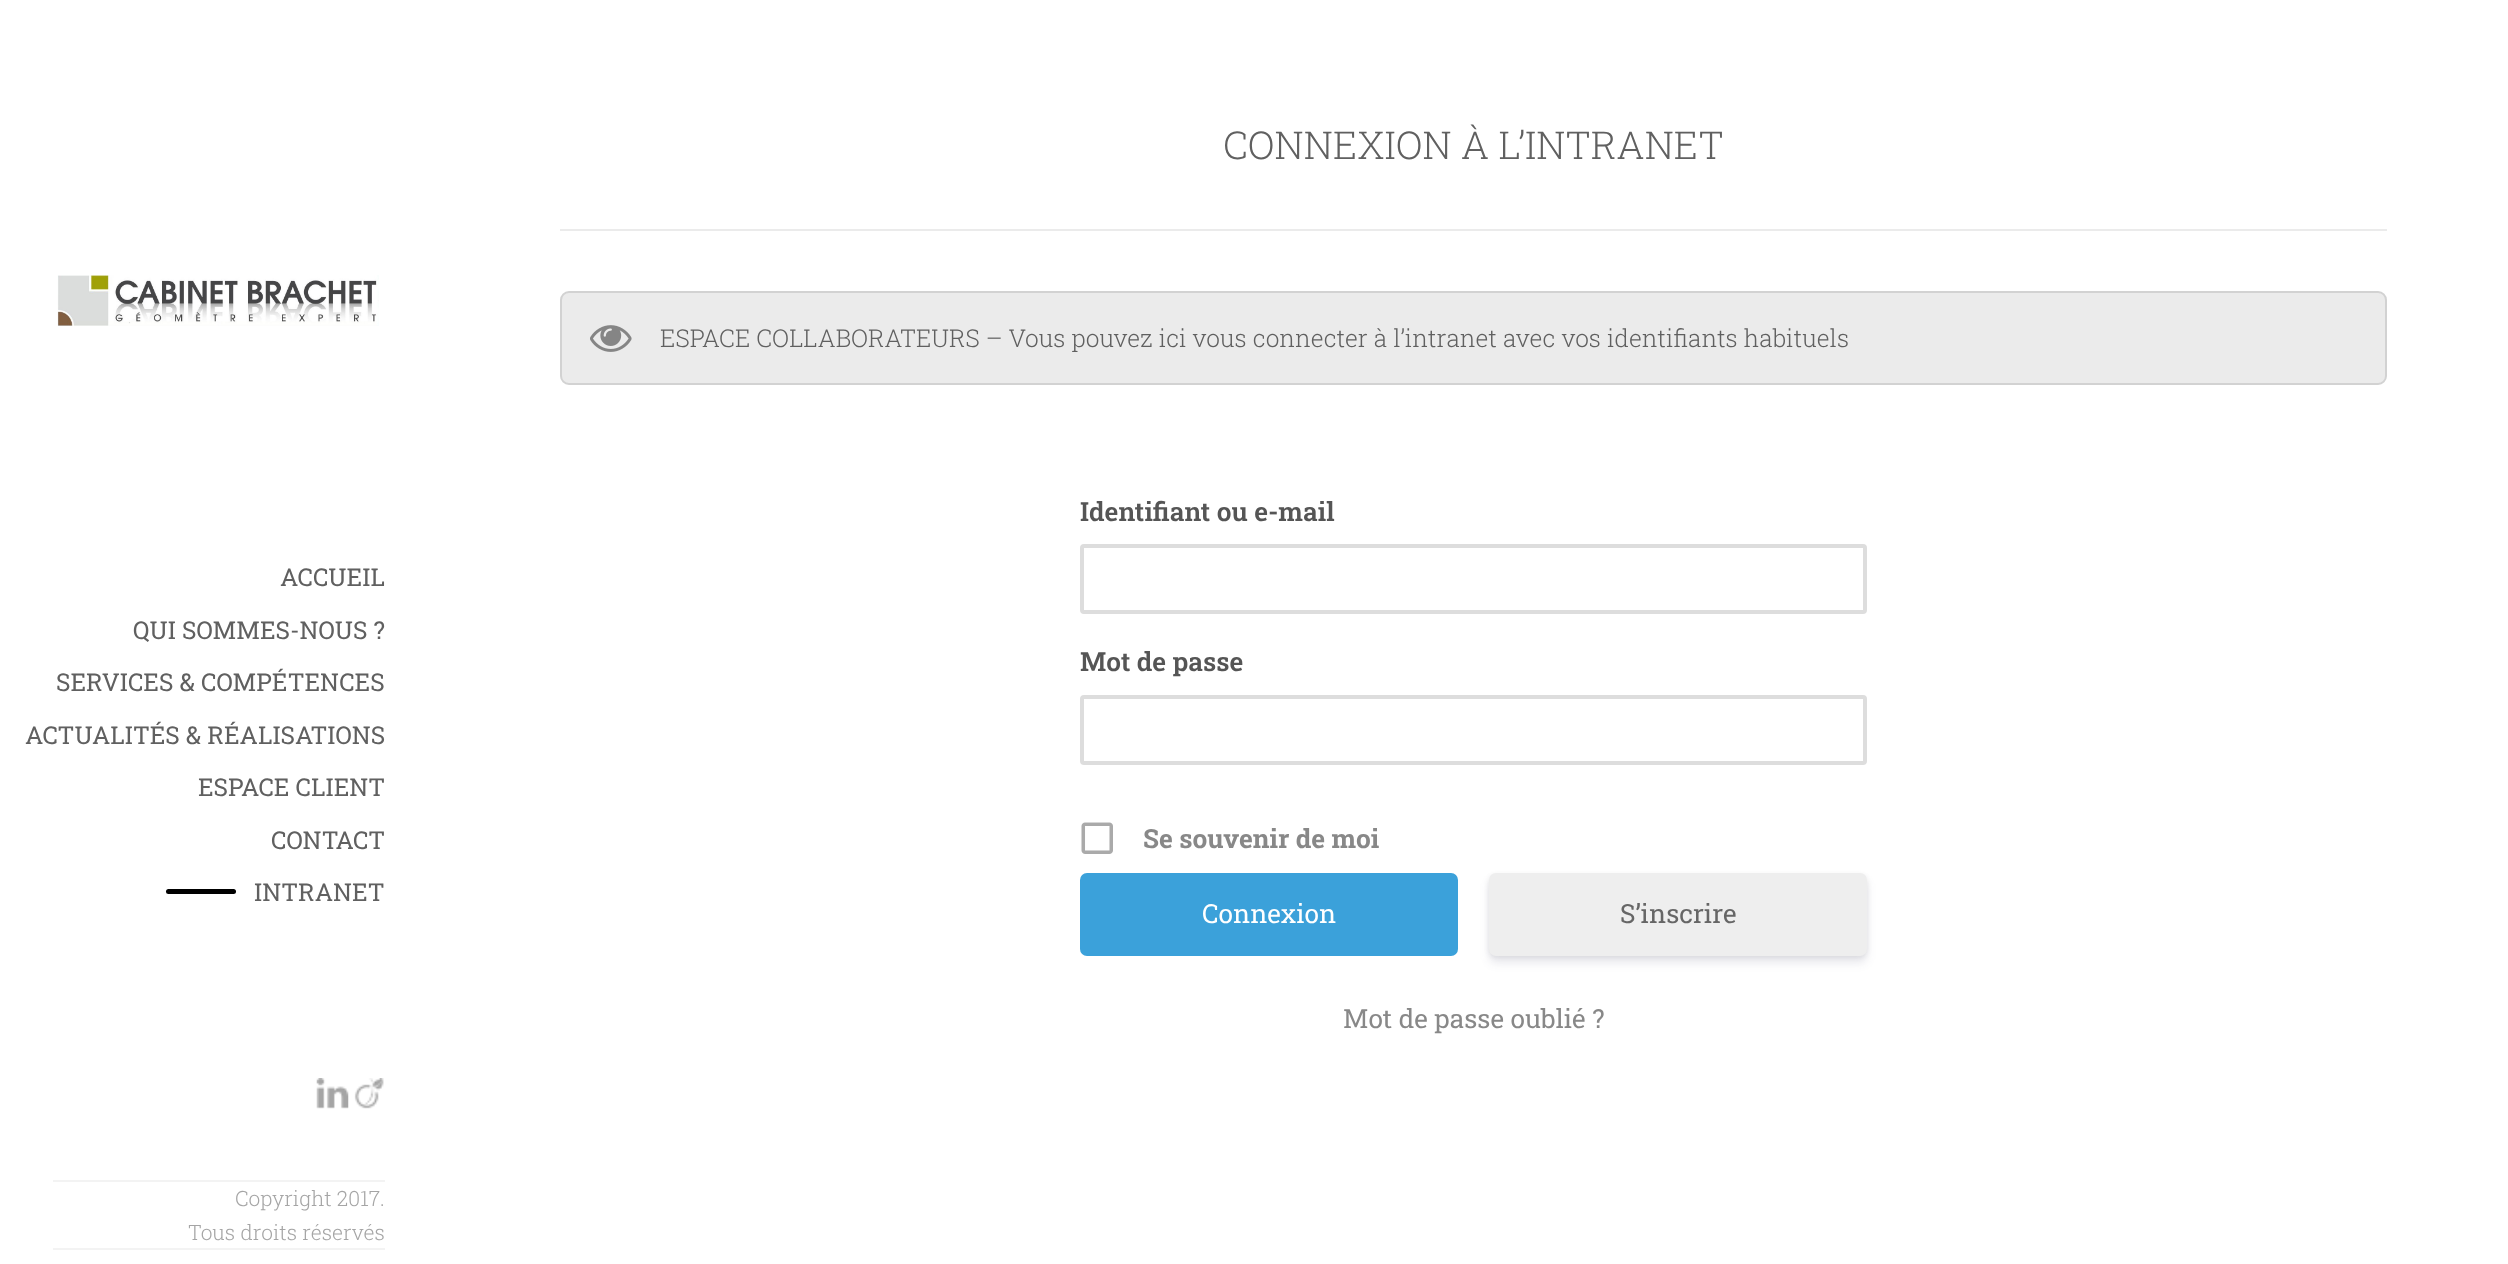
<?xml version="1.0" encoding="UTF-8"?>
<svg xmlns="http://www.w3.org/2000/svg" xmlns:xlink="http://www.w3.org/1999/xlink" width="2508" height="1264">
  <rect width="100%" height="100%" fill="#ffffff" />
  <image x="57" y="275" width="322" height="51" xlink:href="image1.png" />
  <rect x="166" y="889" width="70" height="5" rx="2.5" fill="#000000" />
  <rect x="53" y="1180" width="332" height="2" fill="#f3f3f3" />
  <image x="316" y="1078" width="33" height="31" xlink:href="image2.png" />
  <image x="354" y="1078" width="30" height="31" xlink:href="image3.png" />
  <rect x="53" y="1248" width="332" height="2" fill="#f3f3f3" />
  <rect x="560" y="229" width="1827" height="2" fill="#ebebeb" />
  <rect x="561" y="292" width="1825" height="92" rx="8" fill="#ebebeb" stroke="#d2d2d2" stroke-width="2" />
  <image x="590" y="325" width="42" height="27" xlink:href="image4.png" />
  <rect x="1082" y="546" width="783" height="66" rx="2" fill="none" stroke="#dddddd" stroke-width="4" />
  <rect x="1082" y="697" width="783" height="66" rx="2" fill="none" stroke="#dddddd" stroke-width="4" />
  <image x="1081" y="822" width="32" height="32" xlink:href="image5.png" />
  <rect x="1080" y="873" width="378" height="83" rx="7" fill="#3ba1da" />
  <rect x="1489" y="875" width="378" height="82" rx="7" fill="#000000" fill-opacity="0.08" filter="blur(2.5px)" />
  <rect x="1489" y="880" width="378" height="83" rx="7" fill="#32325d" fill-opacity="0.11" filter="blur(5px)" />
  <rect x="1489" y="873" width="378" height="83" rx="7" fill="#eeeeee" />
  <text x="280" y="586" style="font-family: Roboto Slab; font-size: 24.5px; fill: #606060">ACCUEIL</text>
  <text x="133" y="639" style="font-family: Roboto Slab; font-size: 24.5px; fill: #606060">QUI SOMMES-NOUS ?</text>
  <text x="56" y="691" style="font-family: Roboto Slab; font-size: 24.5px; fill: #606060">SERVICES &amp; COMPÉTENCES</text>
  <text x="25" y="744" style="font-family: Roboto Slab; font-size: 24.5px; fill: #606060">ACTUALITÉS &amp; RÉALISATIONS</text>
  <text x="198" y="796" style="font-family: Roboto Slab; font-size: 24.5px; fill: #606060">ESPACE CLIENT</text>
  <text x="271" y="849" style="font-family: Roboto Slab; font-size: 24.5px; fill: #606060">CONTACT</text>
  <text x="254" y="901" style="font-family: Roboto Slab; font-size: 24.5px; fill: #606060">INTRANET</text>
  <text x="235" y="1206" style="font-family: Roboto Slab; font-size: 21px; font-weight: 300; fill: #a5a5a5">Copyright 2017.</text>
  <text x="188" y="1240" style="font-family: Roboto Slab; font-size: 21px; font-weight: 300; fill: #a5a5a5">Tous droits réservés</text>
  <text x="1223" y="159" style="font-family: Roboto Slab; font-size: 38.5px; font-weight: 300; fill: #606060">CONNEXION À L’INTRANET</text>
  <text x="660" y="347" style="font-family: Roboto Slab; font-size: 24.5px; font-weight: 300; fill: #606060">ESPACE COLLABORATEURS – Vous pouvez ici vous connecter à l’intranet avec vos identifiants habituels</text>
  <text x="1080" y="521" style="font-family: Roboto Slab; font-size: 26.25px; font-weight: 600; fill: #555555">Identifiant ou e-mail</text>
  <text x="1080" y="671" style="font-family: Roboto Slab; font-size: 26.25px; font-weight: 600; fill: #555555">Mot de passe</text>
  <text x="1143" y="848" style="font-family: Roboto Slab; font-size: 26.25px; font-weight: bold; fill: #888888">Se souvenir de moi</text>
  <text x="1202" y="923" style="font-family: Roboto Slab; font-size: 26.25px; fill: #ffffff">Connexion</text>
  <text x="1620" y="923" style="font-family: Roboto Slab; font-size: 26.25px; fill: #666666">S’inscrire</text>
  <text x="1343" y="1028" style="font-family: Roboto Slab; font-size: 26.25px; fill: #888888">Mot de passe oublié ?</text>
</svg>
